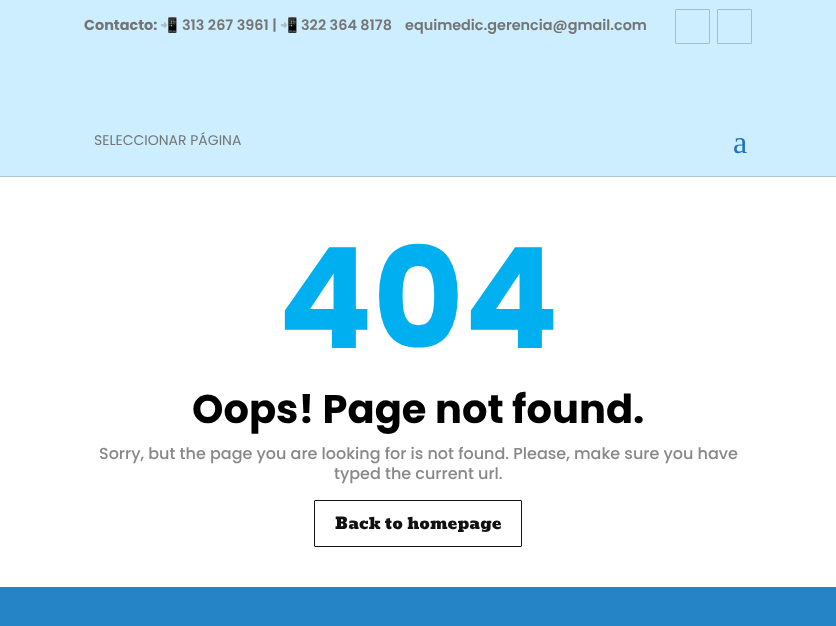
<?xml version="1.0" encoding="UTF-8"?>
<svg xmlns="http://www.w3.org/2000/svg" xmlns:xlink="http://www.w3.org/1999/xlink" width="836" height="626">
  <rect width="100%" height="100%" fill="#ffffff" />
  <rect width="836" height="176" fill="#cceeff" />
  <rect x="675.5" y="9.5" width="34" height="34" rx="0.5" fill="none" stroke="#a3becc" />
  <rect x="717.5" y="9.5" width="34" height="34" rx="0.5" fill="none" stroke="#a3becc" />
  <rect y="176" width="836" height="1" fill="#adcad9" />
  <rect x="314.5" y="500.5" width="207" height="46" rx="0.5" fill="none" stroke="#111111" />
  <rect y="587" width="836" height="39" fill="#2484c6" />
  <text x="84" y="30" style="font-family: Poppins; font-size: 14.4px; font-weight: bold; fill: #757575">Contacto:</text>
  <text x="160" y="30" style="font-family: Noto Color Emoji; font-size: 14.4px; font-weight: bold; fill: #757575">📲</text>
  <text x="182" y="30" style="font-family: Poppins; font-size: 14.4px; font-weight: 600; fill: #757575">313 267 3961 |</text>
  <text x="280" y="30" style="font-family: Noto Color Emoji; font-size: 14.4px; font-weight: bold; fill: #757575">📲</text>
  <text x="301" y="30" style="font-family: Poppins; font-size: 14.4px; font-weight: 600; fill: #757575">322 364 8178</text>
  <text x="405" y="30" style="font-family: Poppins; font-size: 14.4px; font-weight: 600; fill: #757575">equimedic.gerencia@gmail.com</text>
  <text x="94" y="145" style="font-family: Poppins; font-size: 14px; fill: #757575">SELECCIONAR PÁGINA</text>
  <text x="733" y="153" style="font-family: Liberation Serif; font-size: 32px; fill: #1e73be">a</text>
  <text x="278" y="348" style="font-family: Poppins; font-size: 140px; font-weight: bold; fill: #00afef">404</text>
  <text x="192" y="423" style="font-family: Poppins; font-size: 40px; font-weight: bold; fill: #000000">Oops! Page not found.</text>
  <text x="99" y="459" style="font-family: Poppins; font-size: 16px; font-weight: 500; fill: #888888">Sorry, but the page you are looking for is not found. Please, make sure you have</text>
  <text x="334" y="479" style="font-family: Poppins; font-size: 16px; font-weight: 500; fill: #888888">typed the current url.</text>
  <text x="335" y="529" style="font-family: Angkor; font-size: 16px; fill: #111111">Back to homepage</text>
</svg>
